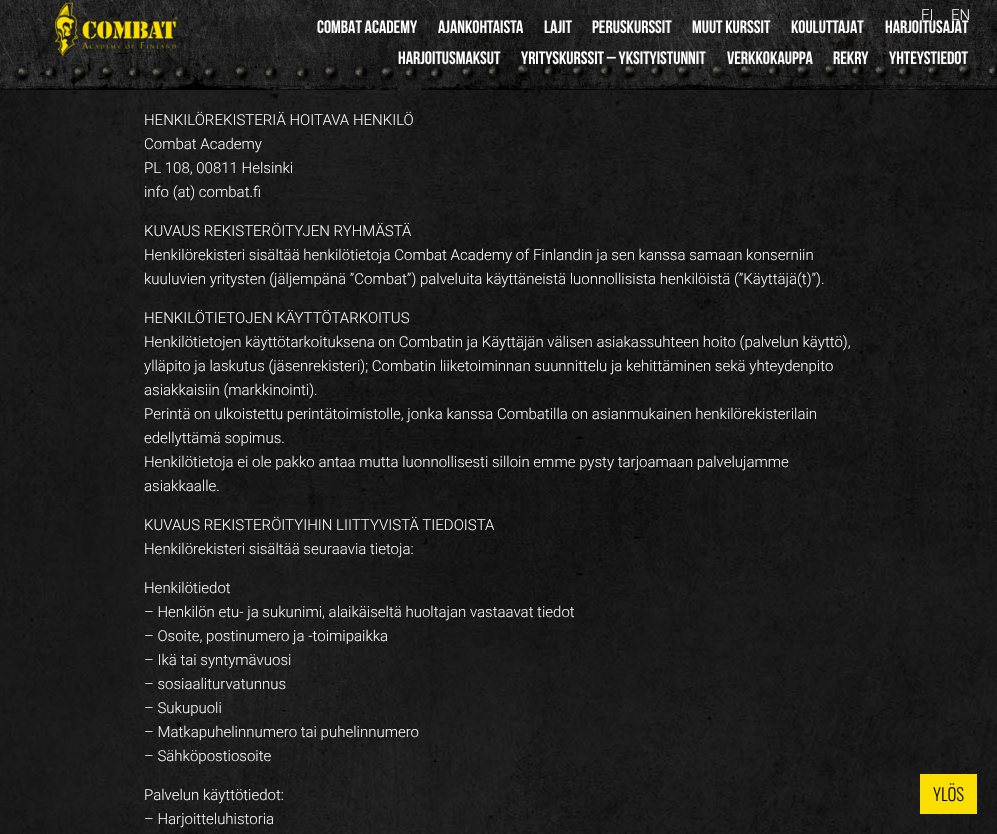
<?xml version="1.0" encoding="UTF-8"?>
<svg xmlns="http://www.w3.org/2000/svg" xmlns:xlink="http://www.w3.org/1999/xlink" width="997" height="834">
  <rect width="100%" height="100%" fill="#ffffff" />
  <image x="0" y="90" width="997" height="744" xlink:href="image1.png" />
  <image x="0" y="0" width="997" height="90" xlink:href="image2.png" />
  <image x="54" y="1" width="124" height="55" xlink:href="image3.png" />
  <rect x="920" y="774" width="57" height="40" fill="#f9de00" />
  <text x="921" y="20" style="font-family: Roboto; font-size: 15px; font-weight: 300; fill: #ffffff">FI</text>
  <text x="951" y="20" style="font-family: Roboto; font-size: 15px; font-weight: 300; fill: #ffffff">EN</text>
  <text x="317" y="33" style="font-family: Bebas Neue; font-size: 18px; font-weight: bold; fill: #ffffff">COMBAT ACADEMY</text>
  <text x="438" y="33" style="font-family: Bebas Neue; font-size: 18px; font-weight: bold; fill: #ffffff">AJANKOHTAISTA</text>
  <text x="544" y="33" style="font-family: Bebas Neue; font-size: 18px; font-weight: bold; fill: #ffffff">LAJIT</text>
  <text x="592" y="33" style="font-family: Bebas Neue; font-size: 18px; font-weight: bold; fill: #ffffff">PERUSKURSSIT</text>
  <text x="692" y="33" style="font-family: Bebas Neue; font-size: 18px; font-weight: bold; fill: #ffffff">MUUT KURSSIT</text>
  <text x="791" y="33" style="font-family: Bebas Neue; font-size: 18px; font-weight: bold; fill: #ffffff">KOULUTTAJAT</text>
  <text x="885" y="33" style="font-family: Bebas Neue; font-size: 18px; font-weight: bold; fill: #ffffff">HARJOITUSAJAT</text>
  <text x="398" y="64" style="font-family: Bebas Neue; font-size: 18px; font-weight: bold; fill: #ffffff">HARJOITUSMAKSUT</text>
  <text x="521" y="64" style="font-family: Bebas Neue; font-size: 18px; font-weight: bold; fill: #ffffff">YRITYSKURSSIT – YKSITYISTUNNIT</text>
  <text x="727" y="64" style="font-family: Bebas Neue; font-size: 18px; font-weight: bold; fill: #ffffff">VERKKOKAUPPA</text>
  <text x="833" y="64" style="font-family: Bebas Neue; font-size: 18px; font-weight: bold; fill: #ffffff">REKRY</text>
  <text x="889" y="64" style="font-family: Bebas Neue; font-size: 18px; font-weight: bold; fill: #ffffff">YHTEYSTIEDOT</text>
  <text x="144" y="125" style="font-family: Roboto; font-size: 15px; font-weight: 300; fill: #ffffff">HENKILÖREKISTERIÄ HOITAVA HENKILÖ</text>
  <text x="144" y="149" style="font-family: Roboto; font-size: 15px; font-weight: 300; fill: #ffffff">Combat Academy</text>
  <text x="144" y="173" style="font-family: Roboto; font-size: 15px; font-weight: 300; fill: #ffffff">PL 108, 00811 Helsinki</text>
  <text x="144" y="197" style="font-family: Roboto; font-size: 15px; font-weight: 300; fill: #ffffff">info (at) combat.fi</text>
  <text x="144" y="236" style="font-family: Roboto; font-size: 15px; font-weight: 300; fill: #ffffff">KUVAUS REKISTERÖITYJEN RYHMÄSTÄ</text>
  <text x="144" y="260" style="font-family: Roboto; font-size: 15px; font-weight: 300; fill: #ffffff">Henkilörekisteri sisältää henkilötietoja Combat Academy of Finlandin ja sen kanssa samaan konserniin</text>
  <text x="144" y="284" style="font-family: Roboto; font-size: 15px; font-weight: 300; fill: #ffffff">kuuluvien yritysten (jäljempänä ”Combat”) palveluita käyttäneistä luonnollisista henkilöistä (”Käyttäjä(t)”).</text>
  <text x="144" y="323" style="font-family: Roboto; font-size: 15px; font-weight: 300; fill: #ffffff">HENKILÖTIETOJEN KÄYTTÖTARKOITUS</text>
  <text x="144" y="347" style="font-family: Roboto; font-size: 15px; font-weight: 300; fill: #ffffff">Henkilötietojen käyttötarkoituksena on Combatin ja Käyttäjän välisen asiakassuhteen hoito (palvelun käyttö),</text>
  <text x="144" y="371" style="font-family: Roboto; font-size: 15px; font-weight: 300; fill: #ffffff">ylläpito ja laskutus (jäsenrekisteri); Combatin liiketoiminnan suunnittelu ja kehittäminen sekä yhteydenpito</text>
  <text x="144" y="395" style="font-family: Roboto; font-size: 15px; font-weight: 300; fill: #ffffff">asiakkaisiin (markkinointi).</text>
  <text x="144" y="419" style="font-family: Roboto; font-size: 15px; font-weight: 300; fill: #ffffff">Perintä on ulkoistettu perintätoimistolle, jonka kanssa Combatilla on asianmukainen henkilörekisterilain</text>
  <text x="144" y="443" style="font-family: Roboto; font-size: 15px; font-weight: 300; fill: #ffffff">edellyttämä sopimus.</text>
  <text x="144" y="467" style="font-family: Roboto; font-size: 15px; font-weight: 300; fill: #ffffff">Henkilötietoja ei ole pakko antaa mutta luonnollisesti silloin emme pysty tarjoamaan palvelujamme</text>
  <text x="144" y="491" style="font-family: Roboto; font-size: 15px; font-weight: 300; fill: #ffffff">asiakkaalle.</text>
  <text x="144" y="530" style="font-family: Roboto; font-size: 15px; font-weight: 300; fill: #ffffff">KUVAUS REKISTERÖITYIHIN LIITTYVISTÄ TIEDOISTA</text>
  <text x="144" y="554" style="font-family: Roboto; font-size: 15px; font-weight: 300; fill: #ffffff">Henkilörekisteri sisältää seuraavia tietoja:</text>
  <text x="144" y="593" style="font-family: Roboto; font-size: 15px; font-weight: 300; fill: #ffffff">Henkilötiedot</text>
  <text x="144" y="617" style="font-family: Roboto; font-size: 15px; font-weight: 300; fill: #ffffff">– Henkilön etu- ja sukunimi, alaikäiseltä huoltajan vastaavat tiedot</text>
  <text x="144" y="641" style="font-family: Roboto; font-size: 15px; font-weight: 300; fill: #ffffff">– Osoite, postinumero ja -toimipaikka</text>
  <text x="144" y="665" style="font-family: Roboto; font-size: 15px; font-weight: 300; fill: #ffffff">– Ikä tai syntymävuosi</text>
  <text x="144" y="689" style="font-family: Roboto; font-size: 15px; font-weight: 300; fill: #ffffff">– sosiaaliturvatunnus</text>
  <text x="144" y="713" style="font-family: Roboto; font-size: 15px; font-weight: 300; fill: #ffffff">– Sukupuoli</text>
  <text x="144" y="737" style="font-family: Roboto; font-size: 15px; font-weight: 300; fill: #ffffff">– Matkapuhelinnumero tai puhelinnumero</text>
  <text x="144" y="761" style="font-family: Roboto; font-size: 15px; font-weight: 300; fill: #ffffff">– Sähköpostiosoite</text>
  <text x="144" y="800" style="font-family: Roboto; font-size: 15px; font-weight: 300; fill: #ffffff">Palvelun käyttötiedot:</text>
  <text x="144" y="824" style="font-family: Roboto; font-size: 15px; font-weight: 300; fill: #ffffff">– Harjoitteluhistoria</text>
  <text x="933" y="801" style="font-family: Oswald; font-size: 17px; font-weight: 300; fill: #000000">YLÖS</text>
</svg>
